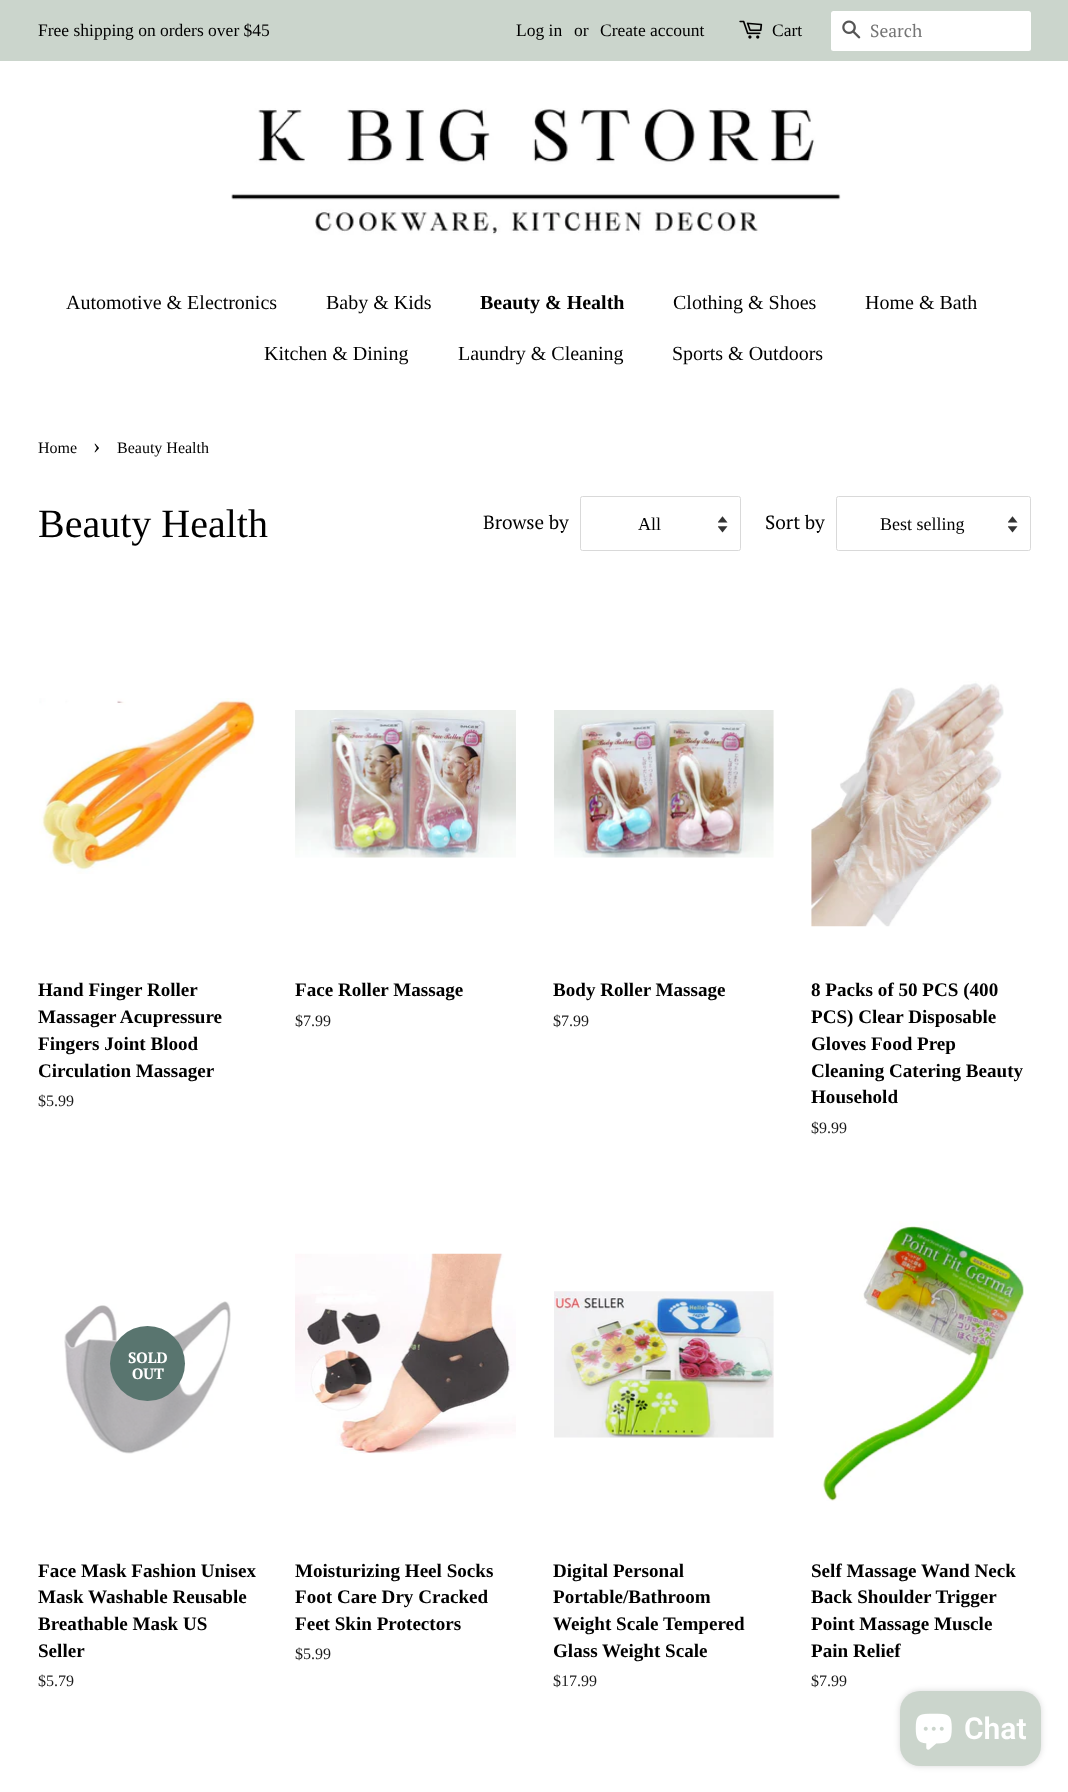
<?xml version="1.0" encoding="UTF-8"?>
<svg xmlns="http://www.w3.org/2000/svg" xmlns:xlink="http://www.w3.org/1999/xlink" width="1068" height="1792">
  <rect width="100%" height="100%" fill="#ffffff" />
  <rect width="1068" height="61" fill="#cbd5cc" />
  <image x="739" y="20" width="24" height="19" xlink:href="image1.png" />
  <rect x="831" y="11" width="200" height="40" rx="2.5" fill="#ffffff" />
  <image x="842" y="20" width="19" height="19" xlink:href="image2.png" />
  <image x="231" y="108" width="610" height="127" xlink:href="image3.png" />
  <image x="718" y="516" width="10" height="17" xlink:href="image4.png" />
  <rect x="580.5" y="496.5" width="160" height="54" rx="2" fill="none" stroke="#d9d9d9" />
  <image x="1008" y="516" width="10" height="17" xlink:href="image4.png" />
  <rect x="836.5" y="496.5" width="194" height="54" rx="2" fill="none" stroke="#d9d9d9" />
  <image x="39" y="698" width="216" height="176" xlink:href="image5.png" />
  <image x="295" y="710" width="221" height="148" xlink:href="image6.png" />
  <image x="554" y="710" width="220" height="148" xlink:href="image7.png" />
  <image x="811" y="681" width="193" height="246" xlink:href="image8.png" />
  <image x="64" y="1301" width="167" height="153" xlink:href="image9.png" />
  <circle cx="147.5" cy="1363.5" r="37.5" fill="#59756f" />
  <image x="295" y="1253" width="221" height="201" xlink:href="image10.png" />
  <image x="554" y="1291" width="220" height="147" xlink:href="image11.png" />
  <image x="821" y="1221" width="203" height="280" xlink:href="image12.png" />
  <rect x="900" y="1691" width="141" height="75" rx="20" fill="#000000" fill-opacity="0.15" filter="blur(3px)" />
  <rect x="900" y="1691" width="141" height="75" rx="20" fill="#cbd5cc" />
  <image x="915" y="1713" width="37" height="37" xlink:href="image13.png" />
  <text x="38" y="36" style="font-family: Liberation Serif; font-size: 17.5px; fill: #000000">Free shipping on orders over $45</text>
  <text x="516" y="36" style="font-family: Liberation Serif; font-size: 17.5px; fill: #000000">Log in</text>
  <text x="574" y="36" style="font-family: Liberation Serif; font-size: 17.5px; fill: #000000">or</text>
  <text x="600" y="36" style="font-family: Liberation Serif; font-size: 17.5px; fill: #000000">Create account</text>
  <text x="772" y="36" style="font-family: Liberation Serif; font-size: 17.5px; fill: #000000">Cart</text>
  <text x="870" y="37" style="font-family: PT Serif; font-size: 17.5px; fill: #757575">Search</text>
  <text x="66" y="309" style="font-family: Liberation Serif; font-size: 20px; fill: #000000">Automotive &amp; Electronics</text>
  <text x="326" y="309" style="font-family: Liberation Serif; font-size: 20px; fill: #000000">Baby &amp; Kids</text>
  <text x="480" y="309" style="font-family: Liberation Serif; font-size: 20px; font-weight: bold; fill: #000000">Beauty &amp; Health</text>
  <text x="673" y="309" style="font-family: Liberation Serif; font-size: 20px; fill: #000000">Clothing &amp; Shoes</text>
  <text x="865" y="309" style="font-family: Liberation Serif; font-size: 20px; fill: #000000">Home &amp; Bath</text>
  <text x="264" y="360" style="font-family: Liberation Serif; font-size: 20px; fill: #000000">Kitchen &amp; Dining</text>
  <text x="458" y="360" style="font-family: Liberation Serif; font-size: 20px; fill: #000000">Laundry &amp; Cleaning</text>
  <text x="672" y="360" style="font-family: Liberation Serif; font-size: 20px; fill: #000000">Sports &amp; Outdoors</text>
  <text x="38" y="453" style="font-family: Liberation Serif; font-size: 16px; fill: #000000">Home</text>
  <text x="93" y="453" style="font-family: Liberation Serif; font-size: 22px; fill: #000000">›</text>
  <text x="117" y="453" style="font-family: Liberation Serif; font-size: 16px; fill: #000000">Beauty Health</text>
  <text x="38" y="537" style="font-family: Liberation Serif; font-size: 40px; fill: #000000">Beauty Health</text>
  <text x="483" y="529" style="font-family: PT Serif; font-size: 19.1px; fill: #000000">Browse by</text>
  <text x="638" y="530" style="font-family: Liberation Serif; font-size: 18px; fill: #000000">All</text>
  <text x="765" y="529" style="font-family: PT Serif; font-size: 19.1px; fill: #000000">Sort by</text>
  <text x="880" y="530" style="font-family: Liberation Serif; font-size: 18px; fill: #000000">Best selling</text>
  <text x="38" y="996" style="font-family: Liberation Serif; font-size: 19.1px; font-weight: bold; fill: #000000">Hand Finger Roller</text>
  <text x="38" y="1023" style="font-family: Liberation Serif; font-size: 19.1px; font-weight: bold; fill: #000000">Massager Acupressure</text>
  <text x="38" y="1050" style="font-family: Liberation Serif; font-size: 19.1px; font-weight: bold; fill: #000000">Fingers Joint Blood</text>
  <text x="38" y="1077" style="font-family: Liberation Serif; font-size: 19.1px; font-weight: bold; fill: #000000">Circulation Massager</text>
  <text x="38" y="1106" style="font-family: Liberation Serif; font-size: 16px; fill: #1a1a1a">$5.99</text>
  <text x="295" y="996" style="font-family: Liberation Serif; font-size: 19.1px; font-weight: bold; fill: #000000">Face Roller Massage</text>
  <text x="295" y="1026" style="font-family: Liberation Serif; font-size: 16px; fill: #1a1a1a">$7.99</text>
  <text x="553" y="996" style="font-family: Liberation Serif; font-size: 19.1px; font-weight: bold; fill: #000000">Body Roller Massage</text>
  <text x="553" y="1026" style="font-family: Liberation Serif; font-size: 16px; fill: #1a1a1a">$7.99</text>
  <text x="811" y="996" style="font-family: Liberation Serif; font-size: 19.1px; font-weight: bold; fill: #000000">8 Packs of 50 PCS (400</text>
  <text x="811" y="1023" style="font-family: Liberation Serif; font-size: 19.1px; font-weight: bold; fill: #000000">PCS) Clear Disposable</text>
  <text x="811" y="1050" style="font-family: Liberation Serif; font-size: 19.1px; font-weight: bold; fill: #000000">Gloves Food Prep</text>
  <text x="811" y="1077" style="font-family: Liberation Serif; font-size: 19.1px; font-weight: bold; fill: #000000">Cleaning Catering Beauty</text>
  <text x="811" y="1103" style="font-family: Liberation Serif; font-size: 19.1px; font-weight: bold; fill: #000000">Household</text>
  <text x="811" y="1133" style="font-family: Liberation Serif; font-size: 16px; fill: #1a1a1a">$9.99</text>
  <text x="128" y="1363" style="font-family: PT Serif; font-size: 15px; font-weight: bold; fill: #ffffff">SOLD</text>
  <text x="132" y="1379" style="font-family: PT Serif; font-size: 15px; font-weight: bold; fill: #ffffff">OUT</text>
  <text x="38" y="1577" style="font-family: Liberation Serif; font-size: 19.1px; font-weight: bold; fill: #000000">Face Mask Fashion Unisex</text>
  <text x="38" y="1603" style="font-family: Liberation Serif; font-size: 19.1px; font-weight: bold; fill: #000000">Mask Washable Reusable</text>
  <text x="38" y="1630" style="font-family: Liberation Serif; font-size: 19.1px; font-weight: bold; fill: #000000">Breathable Mask US</text>
  <text x="38" y="1657" style="font-family: Liberation Serif; font-size: 19.1px; font-weight: bold; fill: #000000">Seller</text>
  <text x="38" y="1686" style="font-family: Liberation Serif; font-size: 16px; fill: #1a1a1a">$5.79</text>
  <text x="295" y="1577" style="font-family: Liberation Serif; font-size: 19.1px; font-weight: bold; fill: #000000">Moisturizing Heel Socks</text>
  <text x="295" y="1603" style="font-family: Liberation Serif; font-size: 19.1px; font-weight: bold; fill: #000000">Foot Care Dry Cracked</text>
  <text x="295" y="1630" style="font-family: Liberation Serif; font-size: 19.1px; font-weight: bold; fill: #000000">Feet Skin Protectors</text>
  <text x="295" y="1659" style="font-family: Liberation Serif; font-size: 16px; fill: #1a1a1a">$5.99</text>
  <text x="553" y="1577" style="font-family: Liberation Serif; font-size: 19.1px; font-weight: bold; fill: #000000">Digital Personal</text>
  <text x="553" y="1603" style="font-family: Liberation Serif; font-size: 19.1px; font-weight: bold; fill: #000000">Portable/Bathroom</text>
  <text x="553" y="1630" style="font-family: Liberation Serif; font-size: 19.1px; font-weight: bold; fill: #000000">Weight Scale Tempered</text>
  <text x="553" y="1657" style="font-family: Liberation Serif; font-size: 19.1px; font-weight: bold; fill: #000000">Glass Weight Scale</text>
  <text x="553" y="1686" style="font-family: Liberation Serif; font-size: 16px; fill: #1a1a1a">$17.99</text>
  <text x="811" y="1577" style="font-family: Liberation Serif; font-size: 19.1px; font-weight: bold; fill: #000000">Self Massage Wand Neck</text>
  <text x="811" y="1603" style="font-family: Liberation Serif; font-size: 19.1px; font-weight: bold; fill: #000000">Back Shoulder Trigger</text>
  <text x="811" y="1630" style="font-family: Liberation Serif; font-size: 19.1px; font-weight: bold; fill: #000000">Point Massage Muscle</text>
  <text x="811" y="1657" style="font-family: Liberation Serif; font-size: 19.1px; font-weight: bold; fill: #000000">Pain Relief</text>
  <text x="811" y="1686" style="font-family: Liberation Serif; font-size: 16px; fill: #1a1a1a">$7.99</text>
  <text x="964" y="1739" style="font-family: Roboto; font-size: 30px; font-weight: 600; fill: #ffffff">Chat</text>
</svg>
